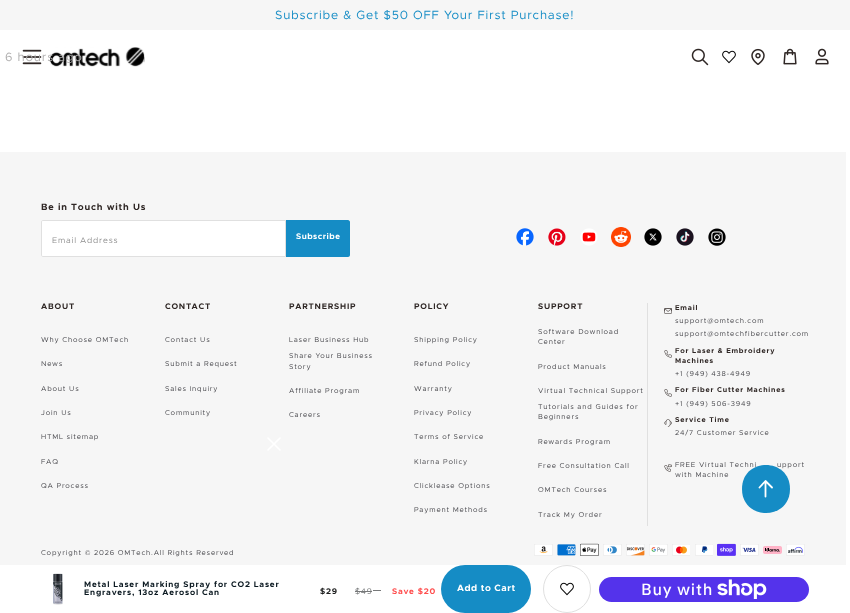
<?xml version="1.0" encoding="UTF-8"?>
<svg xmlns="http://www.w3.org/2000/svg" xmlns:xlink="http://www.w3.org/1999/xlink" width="850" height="613">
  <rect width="100%" height="100%" fill="#ffffff" />
  <rect width="850" height="30" fill="#f6f6f6" />
  <image x="50" y="47" width="95" height="20" xlink:href="image1.png" />
  <image x="22" y="49" width="20" height="16" xlink:href="image2.png" />
  <image x="691" y="48" width="18" height="18" xlink:href="image3.png" />
  <image x="722" y="50" width="14" height="14" xlink:href="image4.png" />
  <image x="751" y="48" width="14" height="17" xlink:href="image5.png" />
  <image x="783" y="48" width="14" height="17" xlink:href="image6.png" />
  <image x="815" y="48" width="14" height="17" xlink:href="image7.png" />
  <rect y="152" width="846" height="413" fill="#f6f6f6" />
  <path d="M 43 220.5 h 242.5 v 36 h -242.5 c -1 0 -1.5 -0.5 -1.5 -1.5 v -33 c 0 -1 0.5 -1.5 1.5 -1.5 z" fill="#ffffff" stroke="#e0e0e0" />
  <path d="M 286 220 h 62 c 1 0 2 1 2 2 v 33 c 0 1 -1 2 -2 2 h -62 z" fill="#158cc5" />
  <image x="516" y="228" width="18" height="18" xlink:href="image8.png" />
  <image x="548" y="228" width="18" height="18" xlink:href="image9.png" />
  <image x="580" y="228" width="18" height="18" xlink:href="image10.png" />
  <image x="611" y="227" width="20" height="20" xlink:href="image11.png" />
  <image x="644" y="228" width="18" height="18" xlink:href="image12.png" />
  <image x="676" y="228" width="18" height="18" xlink:href="image13.png" />
  <image x="708" y="228" width="18" height="18" xlink:href="image14.png" />
  <rect x="647" y="303" width="1" height="223" fill="#e0e0e0" />
  <image x="664" y="308" width="8" height="6" xlink:href="image15.png" />
  <image x="664" y="350" width="8" height="8" xlink:href="image16.png" />
  <image x="664" y="389" width="8" height="8" xlink:href="image17.png" />
  <image x="664" y="419" width="8" height="8" xlink:href="image18.png" />
  <image x="664" y="464" width="8" height="8" xlink:href="image19.png" />
  <image x="534" y="544" width="19" height="12" xlink:href="image20.png" />
  <image x="557" y="544" width="19" height="12" xlink:href="image21.png" />
  <image x="580" y="543" width="19" height="13" xlink:href="image22.png" />
  <image x="603" y="544" width="19" height="12" xlink:href="image23.png" />
  <image x="626" y="544" width="19" height="12" xlink:href="image24.png" />
  <image x="649" y="544" width="19" height="12" xlink:href="image25.png" />
  <image x="672" y="544" width="18" height="12" xlink:href="image26.png" />
  <image x="695" y="544" width="18" height="12" xlink:href="image27.png" />
  <image x="717" y="543" width="19" height="13" xlink:href="image28.png" />
  <image x="740" y="544" width="19" height="12" xlink:href="image29.png" />
  <image x="763" y="546" width="19" height="8" xlink:href="image30.png" />
  <image x="786" y="544" width="19" height="12" xlink:href="image31.png" />
  <path d="M 280 438 l -12 12 m 0 -12 l 12 12" fill="none" stroke="#ffffff" stroke-width="1.6" stroke-linecap="round" stroke-linejoin="round" />
  <image x="53" y="573" width="10" height="32" xlink:href="image32.png" />
  <rect x="355" y="591" width="17" height="1" fill="#77797a" />
  <rect x="373" y="590" width="8" height="1" fill="#77797a" />
  <rect x="441" y="565" width="90" height="48" rx="24" fill="#158cc5" />
  <circle cx="567" cy="589" r="23.5" fill="none" stroke="#e0e0e0" />
  <image x="560" y="582" width="14" height="14" xlink:href="image4.png" />
  <rect x="599" y="577" width="210" height="25" rx="12.5" fill="#5433eb" />
  <image x="717" y="579" width="50" height="20" xlink:href="image33.png" />
  <text x="275" y="19" style="font-family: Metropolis; font-size: 12px; letter-spacing: 0.8px; fill: #158cc5">Subscribe &amp; Get $50 OFF Your First Purchase!</text>
  <text x="41" y="210" style="font-family: Metropolis; font-size: 9.25px; font-weight: bold; letter-spacing: 0.8px; fill: #2f2725">Be in Touch with Us</text>
  <text x="52" y="243" style="font-family: Metropolis; font-size: 8.2px; letter-spacing: 0.8px; fill: #8f8f8f">Email Address</text>
  <text x="296" y="239" style="font-family: Metropolis; font-size: 8.2px; font-weight: bold; letter-spacing: 0.5px; fill: #ffffff">Subscribe</text>
  <text x="41" y="309" style="font-family: Metropolis; font-size: 8.2px; font-weight: bold; letter-spacing: 0.8px; fill: #2f2725">ABOUT</text>
  <text x="41" y="342" style="font-family: Metropolis; font-size: 7.1px; letter-spacing: 0.8px; fill: #46464b">Why Choose OMTech</text>
  <text x="41" y="366" style="font-family: Metropolis; font-size: 7.1px; letter-spacing: 0.8px; fill: #46464b">News</text>
  <text x="41" y="391" style="font-family: Metropolis; font-size: 7.1px; letter-spacing: 0.8px; fill: #46464b">About Us</text>
  <text x="41" y="415" style="font-family: Metropolis; font-size: 7.1px; letter-spacing: 0.8px; fill: #46464b">Join Us</text>
  <text x="41" y="439" style="font-family: Metropolis; font-size: 7.1px; letter-spacing: 0.8px; fill: #46464b">HTML sitemap</text>
  <text x="41" y="464" style="font-family: Metropolis; font-size: 7.1px; letter-spacing: 0.8px; fill: #46464b">FAQ</text>
  <text x="41" y="488" style="font-family: Metropolis; font-size: 7.1px; letter-spacing: 0.8px; fill: #46464b">QA Process</text>
  <text x="165" y="309" style="font-family: Metropolis; font-size: 8.2px; font-weight: bold; letter-spacing: 0.8px; fill: #2f2725">CONTACT</text>
  <text x="165" y="342" style="font-family: Metropolis; font-size: 7.1px; letter-spacing: 0.8px; fill: #46464b">Contact Us</text>
  <text x="165" y="366" style="font-family: Metropolis; font-size: 7.1px; letter-spacing: 0.8px; fill: #46464b">Submit a Request</text>
  <text x="165" y="391" style="font-family: Metropolis; font-size: 7.1px; letter-spacing: 0.8px; fill: #46464b">Sales Inquiry</text>
  <text x="165" y="415" style="font-family: Metropolis; font-size: 7.1px; letter-spacing: 0.8px; fill: #46464b">Community</text>
  <text x="289" y="309" style="font-family: Metropolis; font-size: 8.2px; font-weight: bold; letter-spacing: 0.8px; fill: #2f2725">PARTNERSHIP</text>
  <text x="289" y="342" style="font-family: Metropolis; font-size: 7.1px; letter-spacing: 0.8px; fill: #46464b">Laser Business Hub</text>
  <text x="289" y="358" style="font-family: Metropolis; font-size: 7.1px; letter-spacing: 0.8px; fill: #46464b">Share Your Business</text>
  <text x="289" y="369" style="font-family: Metropolis; font-size: 7.1px; letter-spacing: 0.8px; fill: #46464b">Story</text>
  <text x="289" y="393" style="font-family: Metropolis; font-size: 7.1px; letter-spacing: 0.8px; fill: #46464b">Affiliate Program</text>
  <text x="289" y="417" style="font-family: Metropolis; font-size: 7.1px; letter-spacing: 0.8px; fill: #46464b">Careers</text>
  <text x="414" y="309" style="font-family: Metropolis; font-size: 8.2px; font-weight: bold; letter-spacing: 0.8px; fill: #2f2725">POLICY</text>
  <text x="414" y="342" style="font-family: Metropolis; font-size: 7.1px; letter-spacing: 0.8px; fill: #46464b">Shipping Policy</text>
  <text x="414" y="366" style="font-family: Metropolis; font-size: 7.1px; letter-spacing: 0.8px; fill: #46464b">Refund Policy</text>
  <text x="414" y="391" style="font-family: Metropolis; font-size: 7.1px; letter-spacing: 0.8px; fill: #46464b">Warranty</text>
  <text x="414" y="415" style="font-family: Metropolis; font-size: 7.1px; letter-spacing: 0.8px; fill: #46464b">Privacy Policy</text>
  <text x="414" y="439" style="font-family: Metropolis; font-size: 7.1px; letter-spacing: 0.8px; fill: #46464b">Terms of Service</text>
  <text x="414" y="464" style="font-family: Metropolis; font-size: 7.1px; letter-spacing: 0.8px; fill: #46464b">Klarna Policy</text>
  <text x="414" y="488" style="font-family: Metropolis; font-size: 7.1px; letter-spacing: 0.8px; fill: #46464b">Clicklease Options</text>
  <text x="414" y="512" style="font-family: Metropolis; font-size: 7.1px; letter-spacing: 0.8px; fill: #46464b">Payment Methods</text>
  <text x="538" y="309" style="font-family: Metropolis; font-size: 8.2px; font-weight: bold; letter-spacing: 0.8px; fill: #2f2725">SUPPORT</text>
  <text x="538" y="334" style="font-family: Metropolis; font-size: 7.1px; letter-spacing: 0.8px; fill: #46464b">Software Download</text>
  <text x="538" y="344" style="font-family: Metropolis; font-size: 7.1px; letter-spacing: 0.8px; fill: #46464b">Center</text>
  <text x="538" y="369" style="font-family: Metropolis; font-size: 7.1px; letter-spacing: 0.8px; fill: #46464b">Product Manuals</text>
  <text x="538" y="393" style="font-family: Metropolis; font-size: 7.1px; letter-spacing: 0.8px; fill: #46464b">Virtual Technical Support</text>
  <text x="538" y="409" style="font-family: Metropolis; font-size: 7.1px; letter-spacing: 0.8px; fill: #46464b">Tutorials and Guides for</text>
  <text x="538" y="419" style="font-family: Metropolis; font-size: 7.1px; letter-spacing: 0.8px; fill: #46464b">Beginners</text>
  <text x="538" y="444" style="font-family: Metropolis; font-size: 7.1px; letter-spacing: 0.8px; fill: #46464b">Rewards Program</text>
  <text x="538" y="468" style="font-family: Metropolis; font-size: 7.1px; letter-spacing: 0.8px; fill: #46464b">Free Consultation Call</text>
  <text x="538" y="492" style="font-family: Metropolis; font-size: 7.1px; letter-spacing: 0.8px; fill: #46464b">OMTech Courses</text>
  <text x="538" y="517" style="font-family: Metropolis; font-size: 7.1px; letter-spacing: 0.8px; fill: #46464b">Track My Order</text>
  <text x="675" y="310" style="font-family: Metropolis; font-size: 7.1px; font-weight: bold; letter-spacing: 0.8px; fill: #2f2725">Email</text>
  <text x="675" y="323" style="font-family: Metropolis; font-size: 7.1px; letter-spacing: 0.8px; fill: #46464b">support@omtech.com</text>
  <text x="675" y="336" style="font-family: Metropolis; font-size: 7.1px; letter-spacing: 0.8px; fill: #46464b">support@omtechfibercutter.com</text>
  <text x="675" y="353" style="font-family: Metropolis; font-size: 7.1px; font-weight: bold; letter-spacing: 0.8px; fill: #2f2725">For Laser &amp; Embroidery</text>
  <text x="675" y="363" style="font-family: Metropolis; font-size: 7.1px; font-weight: bold; letter-spacing: 0.8px; fill: #2f2725">Machines</text>
  <text x="675" y="376" style="font-family: Metropolis; font-size: 7.1px; letter-spacing: 0.8px; fill: #46464b">+1 (949) 438-4949</text>
  <text x="675" y="392" style="font-family: Metropolis; font-size: 7.1px; font-weight: bold; letter-spacing: 0.8px; fill: #2f2725">For Fiber Cutter Machines</text>
  <text x="675" y="406" style="font-family: Metropolis; font-size: 7.1px; letter-spacing: 0.8px; fill: #46464b">+1 (949) 506-3949</text>
  <text x="675" y="422" style="font-family: Metropolis; font-size: 7.1px; font-weight: bold; letter-spacing: 0.8px; fill: #2f2725">Service Time</text>
  <text x="675" y="435" style="font-family: Metropolis; font-size: 7.1px; letter-spacing: 0.8px; fill: #46464b">24/7 Customer Service</text>
  <text x="675" y="467" style="font-family: Metropolis; font-size: 7.1px; letter-spacing: 0.8px; fill: #46464b">FREE Virtual Techni</text>
  <text x="777" y="467" style="font-family: Metropolis; font-size: 7.1px; letter-spacing: 0.8px; fill: #46464b">upport</text>
  <text x="675" y="477" style="font-family: Metropolis; font-size: 7.1px; letter-spacing: 0.8px; fill: #46464b">with Machine</text>
  <text x="41" y="555" style="font-family: Metropolis; font-size: 7.1px; letter-spacing: 0.8px; fill: #46464b">Copyright</text>
  <text x="85" y="555" style="font-family: Liberation Serif; font-size: 7.1px; letter-spacing: 0.8px; fill: #46464b">©</text>
  <text x="94" y="555" style="font-family: Metropolis; font-size: 7.1px; letter-spacing: 0.8px; fill: #46464b">2026 OMTech.All Rights Reserved</text>
  <path d="M 742 489 c 0 -32 48 -32 48 0 c 0 32 -48 32 -48 0 z" fill="#158cc5" />
  <path d="M 765.5 481.5 v 15 m -6 -9 l 6 -6.5 l 6.5 6.5" fill="none" stroke="#ffffff" stroke-width="1.8" stroke-linecap="round" stroke-linejoin="round" />
  <text x="84" y="587" style="font-family: Metropolis; font-size: 8.2px; font-weight: bold; letter-spacing: 0.8px; fill: #0b1921">Metal Laser Marking Spray for CO2 Laser</text>
  <text x="84" y="595" style="font-family: Metropolis; font-size: 8.2px; font-weight: bold; letter-spacing: 0.8px; fill: #0b1921">Engravers, 13oz Aerosol Can</text>
  <text x="320" y="594" style="font-family: Metropolis; font-size: 8.2px; font-weight: bold; letter-spacing: 0.8px; fill: #1c1d1d">$29</text>
  <text x="355" y="594" style="font-family: Metropolis; font-size: 8.2px; letter-spacing: 0.8px; fill: #77797a">$49</text>
  <text x="392" y="594" style="font-family: Metropolis; font-size: 8.2px; font-weight: bold; letter-spacing: 0.8px; fill: #ff4e4e">Save $20</text>
  <text x="457" y="591" style="font-family: Metropolis; font-size: 9.25px; font-weight: bold; letter-spacing: 0.5px; fill: #ffffff">Add to Cart</text>
  <text x="641" y="595" style="font-family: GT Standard; font-size: 16px; font-weight: 500; letter-spacing: 0.8px; fill: #ffffff">Buy with</text>
  <text x="5" y="61" style="font-family: Metropolis; font-size: 12px; letter-spacing: 0.8px; fill: #b0afaf">6 hours ago</text>
</svg>
